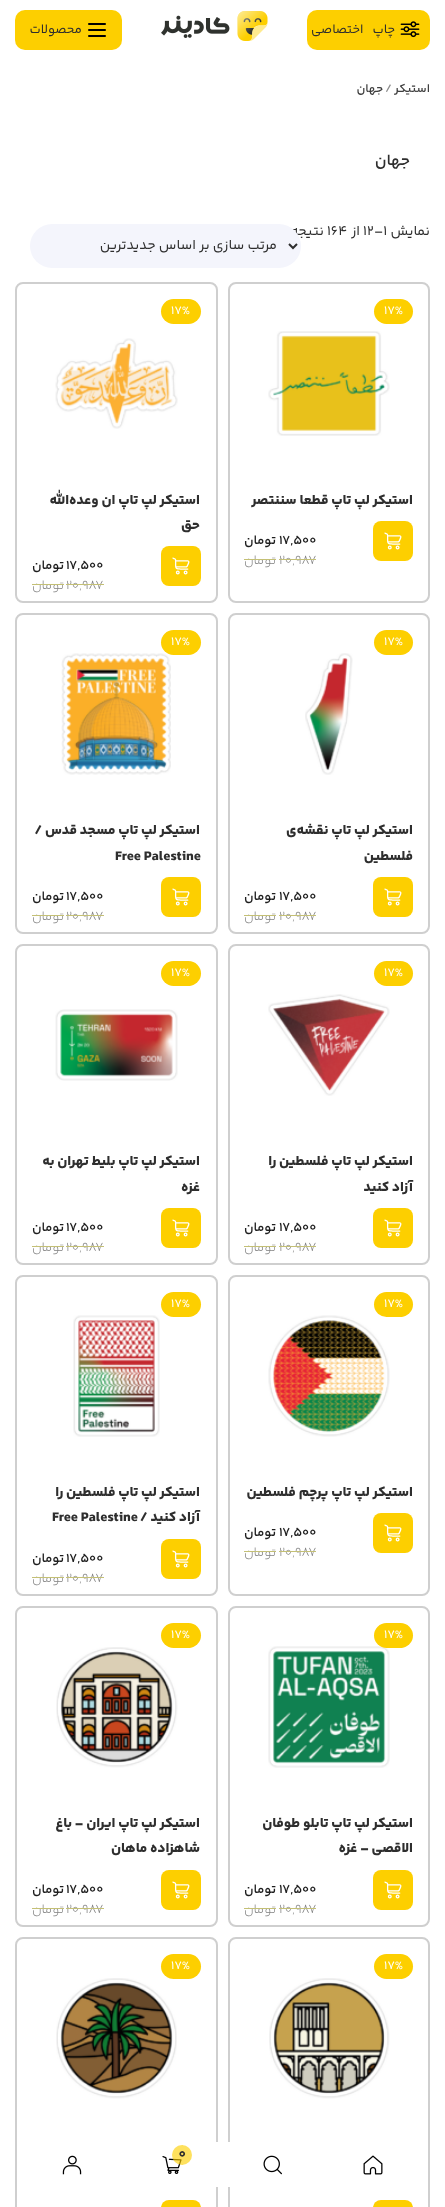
<?xml version="1.0" encoding="UTF-8"?>
<svg xmlns="http://www.w3.org/2000/svg" xmlns:xlink="http://www.w3.org/1999/xlink" width="445" height="2207">
  <rect width="100%" height="100%" fill="#ffffff" />
  <rect x="307" y="10" width="123" height="40" rx="10" fill="#fdcf00" />
  <image x="400" y="21" width="20" height="17" xlink:href="image1.png" />
  <image x="161" y="11" width="107" height="30" xlink:href="image2.png" />
  <rect x="15" y="10" width="107" height="40" rx="10" fill="#fdcf00" />
  <image x="88" y="23" width="18" height="14" xlink:href="image3.png" />
  <rect x="229" y="283" width="200" height="319" rx="7" fill="none" stroke="#cfcfcf" stroke-width="2" />
  <rect x="374" y="299" width="39" height="25" rx="12.5" fill="#fdcf00" />
  <image x="268" y="331" width="122" height="105" xlink:href="image4.png" />
  <rect x="373" y="521" width="40" height="40" rx="8" fill="#fdcf00" />
  <image x="384" y="532" width="18" height="18" xlink:href="image5.png" />
  <rect x="16" y="283" width="201" height="319" rx="7" fill="none" stroke="#cfcfcf" stroke-width="2" />
  <rect x="161" y="299" width="40" height="25" rx="12.5" fill="#fdcf00" />
  <image x="55" y="338" width="123" height="91" xlink:href="image6.png" />
  <rect x="161" y="546" width="40" height="40" rx="8" fill="#fdcf00" />
  <image x="172" y="557" width="18" height="18" xlink:href="image5.png" />
  <rect x="229" y="614" width="200" height="319" rx="7" fill="none" stroke="#cfcfcf" stroke-width="2" />
  <rect x="374" y="630" width="39" height="25" rx="12.5" fill="#fdcf00" />
  <image x="305" y="653" width="48" height="122" xlink:href="image7.png" />
  <rect x="373" y="877" width="40" height="40" rx="8" fill="#fdcf00" />
  <image x="384" y="888" width="18" height="18" xlink:href="image5.png" />
  <rect x="16" y="614" width="201" height="319" rx="7" fill="none" stroke="#cfcfcf" stroke-width="2" />
  <image x="61" y="653" width="110" height="122" xlink:href="image8.png" />
  <rect x="161" y="630" width="40" height="25" rx="12.5" fill="#fdcf00" />
  <rect x="161" y="877" width="40" height="40" rx="8" fill="#fdcf00" />
  <image x="172" y="888" width="18" height="18" xlink:href="image5.png" />
  <rect x="229" y="945" width="200" height="319" rx="7" fill="none" stroke="#cfcfcf" stroke-width="2" />
  <rect x="374" y="961" width="39" height="25" rx="12.5" fill="#fdcf00" />
  <image x="268" y="994" width="122" height="102" xlink:href="image9.png" />
  <rect x="373" y="1208" width="40" height="40" rx="8" fill="#fdcf00" />
  <image x="384" y="1219" width="18" height="18" xlink:href="image5.png" />
  <rect x="16" y="945" width="201" height="319" rx="7" fill="none" stroke="#cfcfcf" stroke-width="2" />
  <rect x="161" y="961" width="40" height="25" rx="12.5" fill="#fdcf00" />
  <image x="55" y="1009" width="123" height="72" xlink:href="image10.png" />
  <rect x="161" y="1208" width="40" height="40" rx="8" fill="#fdcf00" />
  <image x="172" y="1219" width="18" height="18" xlink:href="image5.png" />
  <rect x="229" y="1276" width="200" height="319" rx="7" fill="none" stroke="#cfcfcf" stroke-width="2" />
  <image x="268" y="1315" width="122" height="122" xlink:href="image11.png" />
  <rect x="374" y="1292" width="39" height="25" rx="12.5" fill="#fdcf00" />
  <rect x="373" y="1513" width="40" height="40" rx="8" fill="#fdcf00" />
  <image x="384" y="1524" width="18" height="18" xlink:href="image5.png" />
  <rect x="16" y="1276" width="201" height="319" rx="7" fill="none" stroke="#cfcfcf" stroke-width="2" />
  <rect x="161" y="1292" width="40" height="25" rx="12.5" fill="#fdcf00" />
  <image x="73" y="1315" width="87" height="122" xlink:href="image12.png" />
  <rect x="161" y="1539" width="40" height="40" rx="8" fill="#fdcf00" />
  <image x="172" y="1550" width="18" height="18" xlink:href="image5.png" />
  <rect x="229" y="1607" width="200" height="319" rx="7" fill="none" stroke="#cfcfcf" stroke-width="2" />
  <image x="268" y="1646" width="122" height="122" xlink:href="image13.png" />
  <rect x="374" y="1623" width="39" height="25" rx="12.5" fill="#fdcf00" />
  <rect x="373" y="1870" width="40" height="40" rx="8" fill="#fdcf00" />
  <image x="384" y="1881" width="18" height="18" xlink:href="image5.png" />
  <rect x="16" y="1607" width="201" height="319" rx="7" fill="none" stroke="#cfcfcf" stroke-width="2" />
  <image x="56" y="1647" width="122" height="121" xlink:href="image14.png" />
  <rect x="161" y="1623" width="40" height="25" rx="12.5" fill="#fdcf00" />
  <rect x="161" y="1870" width="40" height="40" rx="8" fill="#fdcf00" />
  <image x="172" y="1881" width="18" height="18" xlink:href="image5.png" />
  <rect x="229" y="1938" width="200" height="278" rx="7" fill="none" stroke="#cfcfcf" stroke-width="2" />
  <image x="269" y="1978" width="121" height="121" xlink:href="image15.png" />
  <rect x="374" y="1954" width="39" height="25" rx="12.5" fill="#fdcf00" />
  <rect x="373" y="2200" width="40" height="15" rx="8" fill="#fdcf00" />
  <rect x="16" y="1938" width="201" height="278" rx="7" fill="none" stroke="#cfcfcf" stroke-width="2" />
  <image x="56" y="1978" width="121" height="121" xlink:href="image16.png" />
  <rect x="161" y="1954" width="40" height="25" rx="12.5" fill="#fdcf00" />
  <rect x="161" y="2200" width="40" height="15" rx="8" fill="#fdcf00" />
  <rect x="22" y="2142" width="401" height="45" rx="20" fill="#ffffff" />
  <image x="162" y="2156" width="20" height="18" xlink:href="image17.png" />
  <circle cx="182" cy="2155" r="10" fill="#fdcf00" fill-opacity="0.63" />
  <image x="363" y="2155" width="20" height="20" xlink:href="image18.png" />
  <image x="263" y="2155" width="19" height="20" xlink:href="image19.png" />
  <image x="62" y="2155" width="20" height="20" xlink:href="image20.png" />
  <text x="395" y="33" word-spacing="6" style="font-family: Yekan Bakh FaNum; font-size: 13px; letter-spacing: -0.5px; direction: rtl; fill: #2e2e2e">چاپ اختصاصی</text>
  <text x="82" y="33" style="font-family: Yekan Bakh FaNum; font-size: 13px; direction: rtl; fill: #2e2e2e">محصولات</text>
  <text x="430" y="92" style="font-family: Yekan Bakh FaNum; font-size: 12px; font-weight: 600; direction: rtl; fill: #3f3f3f">استیکر</text>
  <text x="385" y="92" style="font-family: Yekan Bakh FaNum; font-size: 12px; font-weight: 600; fill: #8b8b8b">/</text>
  <text x="383" y="92" style="font-family: Yekan Bakh FaNum; font-size: 12px; font-weight: 600; direction: rtl; fill: #3f3f3f">جهان</text>
  <text x="410" y="165" style="font-family: Yekan Bakh FaNum; font-size: 16px; font-weight: 600; direction: rtl; fill: #2e2e2e">جهان</text>
  <text x="430" y="235" style="font-family: Yekan Bakh FaNum; font-size: 14px; direction: rtl; fill: #2e2e2e">نمایش</text>
  <text x="363" y="235" style="font-family: Yekan Bakh FaNum; font-size: 14px; fill: #2e2e2e">12–1</text>
  <text x="360" y="235" style="font-family: Yekan Bakh FaNum; font-size: 14px; direction: rtl; fill: #2e2e2e">از</text>
  <text x="327" y="235" style="font-family: Yekan Bakh FaNum; font-size: 14px; fill: #2e2e2e">164</text>
  <text x="324" y="235" style="font-family: Yekan Bakh FaNum; font-size: 14px; direction: rtl; fill: #2e2e2e">نتیجه</text>
  <rect x="30" y="224" width="271" height="44" rx="22" fill="#f4f5fc" />
  <path d="M 289 244 l 4 4 l 4 -4" fill="none" stroke="#2e2e2e" stroke-width="2" />
  <text x="277" y="249" style="font-family: Yekan Bakh FaNum; font-size: 14px; direction: rtl; fill: #2e2e2e">مرتب سازی بر اساس جدیدترین</text>
  <text x="384" y="314" style="font-family: Yekan Bakh FaNum; font-size: 12px; fill: #ffffff">17%</text>
  <text x="413" y="504" style="font-family: Yekan Bakh FaNum; font-size: 14px; font-weight: 800; direction: rtl; fill: #2e2e2e">استیکر لپ تاپ قطعا سننتصر</text>
  <text x="279" y="544" style="font-family: Yekan Bakh FaNum; font-size: 13px; font-weight: 600; fill: #1e1e1e">۱۷,۵۰۰</text>
  <text x="276" y="544" style="font-family: Yekan Bakh FaNum; font-size: 13px; font-weight: 600; direction: rtl; fill: #1e1e1e">تومان</text>
  <text x="279" y="564" style="font-family: Yekan Bakh FaNum; font-size: 13px; font-weight: 300; fill: #818181">۲۰,۹۸۷</text>
  <rect x="279" y="559" width="37" height="1" fill="#c4c075" />
  <text x="276" y="564" style="font-family: Yekan Bakh FaNum; font-size: 13px; font-weight: 300; direction: rtl; fill: #818181">تومان</text>
  <rect x="244" y="559" width="32" height="1" fill="#c4c075" />
  <text x="171" y="314" style="font-family: Yekan Bakh FaNum; font-size: 12px; fill: #ffffff">17%</text>
  <text x="200" y="504" style="font-family: Yekan Bakh FaNum; font-size: 14px; font-weight: 800; direction: rtl; fill: #2e2e2e">استیکر لپ تاپ ان وعده‌الله</text>
  <text x="200" y="529" style="font-family: Yekan Bakh FaNum; font-size: 14px; font-weight: 800; direction: rtl; fill: #2e2e2e">حق</text>
  <text x="66" y="569" style="font-family: Yekan Bakh FaNum; font-size: 13px; font-weight: 600; fill: #1e1e1e">۱۷,۵۰۰</text>
  <text x="64" y="569" style="font-family: Yekan Bakh FaNum; font-size: 13px; font-weight: 600; direction: rtl; fill: #1e1e1e">تومان</text>
  <text x="66" y="589" style="font-family: Yekan Bakh FaNum; font-size: 13px; font-weight: 300; fill: #818181">۲۰,۹۸۷</text>
  <rect x="66" y="584" width="38" height="1" fill="#c4c075" />
  <text x="64" y="589" style="font-family: Yekan Bakh FaNum; font-size: 13px; font-weight: 300; direction: rtl; fill: #818181">تومان</text>
  <rect x="32" y="584" width="32" height="1" fill="#c4c075" />
  <text x="384" y="645" style="font-family: Yekan Bakh FaNum; font-size: 12px; fill: #ffffff">17%</text>
  <text x="413" y="834" style="font-family: Yekan Bakh FaNum; font-size: 14px; font-weight: 800; direction: rtl; fill: #2e2e2e">استیکر لپ تاپ نقشه‌ی</text>
  <text x="413" y="860" style="font-family: Yekan Bakh FaNum; font-size: 14px; font-weight: 800; direction: rtl; fill: #2e2e2e">فلسطین</text>
  <text x="279" y="900" style="font-family: Yekan Bakh FaNum; font-size: 13px; font-weight: 600; fill: #1e1e1e">۱۷,۵۰۰</text>
  <text x="276" y="900" style="font-family: Yekan Bakh FaNum; font-size: 13px; font-weight: 600; direction: rtl; fill: #1e1e1e">تومان</text>
  <text x="279" y="920" style="font-family: Yekan Bakh FaNum; font-size: 13px; font-weight: 300; fill: #818181">۲۰,۹۸۷</text>
  <rect x="279" y="915" width="37" height="1" fill="#c4c075" />
  <text x="276" y="920" style="font-family: Yekan Bakh FaNum; font-size: 13px; font-weight: 300; direction: rtl; fill: #818181">تومان</text>
  <rect x="244" y="915" width="32" height="1" fill="#c4c075" />
  <text x="171" y="645" style="font-family: Yekan Bakh FaNum; font-size: 12px; fill: #ffffff">17%</text>
  <text x="200" y="834" style="font-family: Yekan Bakh FaNum; font-size: 14px; font-weight: 800; direction: rtl; fill: #2e2e2e">استیکر لپ تاپ مسجد قدس /</text>
  <text x="115" y="860" style="font-family: Yekan Bakh FaNum; font-size: 14px; font-weight: 800; fill: #2e2e2e">Free Palestine</text>
  <text x="66" y="900" style="font-family: Yekan Bakh FaNum; font-size: 13px; font-weight: 600; fill: #1e1e1e">۱۷,۵۰۰</text>
  <text x="64" y="900" style="font-family: Yekan Bakh FaNum; font-size: 13px; font-weight: 600; direction: rtl; fill: #1e1e1e">تومان</text>
  <text x="66" y="920" style="font-family: Yekan Bakh FaNum; font-size: 13px; font-weight: 300; fill: #818181">۲۰,۹۸۷</text>
  <rect x="66" y="915" width="38" height="1" fill="#c4c075" />
  <text x="64" y="920" style="font-family: Yekan Bakh FaNum; font-size: 13px; font-weight: 300; direction: rtl; fill: #818181">تومان</text>
  <rect x="32" y="915" width="32" height="1" fill="#c4c075" />
  <text x="384" y="976" style="font-family: Yekan Bakh FaNum; font-size: 12px; fill: #ffffff">17%</text>
  <text x="413" y="1165" style="font-family: Yekan Bakh FaNum; font-size: 14px; font-weight: 800; direction: rtl; fill: #2e2e2e">استیکر لپ تاپ فلسطین را</text>
  <text x="413" y="1191" style="font-family: Yekan Bakh FaNum; font-size: 14px; font-weight: 800; direction: rtl; fill: #2e2e2e">آزاد کنید</text>
  <text x="279" y="1231" style="font-family: Yekan Bakh FaNum; font-size: 13px; font-weight: 600; fill: #1e1e1e">۱۷,۵۰۰</text>
  <text x="276" y="1231" style="font-family: Yekan Bakh FaNum; font-size: 13px; font-weight: 600; direction: rtl; fill: #1e1e1e">تومان</text>
  <text x="279" y="1251" style="font-family: Yekan Bakh FaNum; font-size: 13px; font-weight: 300; fill: #818181">۲۰,۹۸۷</text>
  <rect x="279" y="1246" width="37" height="1" fill="#c4c075" />
  <text x="276" y="1251" style="font-family: Yekan Bakh FaNum; font-size: 13px; font-weight: 300; direction: rtl; fill: #818181">تومان</text>
  <rect x="244" y="1246" width="32" height="1" fill="#c4c075" />
  <text x="171" y="976" style="font-family: Yekan Bakh FaNum; font-size: 12px; fill: #ffffff">17%</text>
  <text x="200" y="1165" style="font-family: Yekan Bakh FaNum; font-size: 14px; font-weight: 800; direction: rtl; fill: #2e2e2e">استیکر لپ تاپ بلیط تهران به</text>
  <text x="200" y="1191" style="font-family: Yekan Bakh FaNum; font-size: 14px; font-weight: 800; direction: rtl; fill: #2e2e2e">غزه</text>
  <text x="66" y="1231" style="font-family: Yekan Bakh FaNum; font-size: 13px; font-weight: 600; fill: #1e1e1e">۱۷,۵۰۰</text>
  <text x="64" y="1231" style="font-family: Yekan Bakh FaNum; font-size: 13px; font-weight: 600; direction: rtl; fill: #1e1e1e">تومان</text>
  <text x="66" y="1251" style="font-family: Yekan Bakh FaNum; font-size: 13px; font-weight: 300; fill: #818181">۲۰,۹۸۷</text>
  <rect x="66" y="1246" width="38" height="1" fill="#c4c075" />
  <text x="64" y="1251" style="font-family: Yekan Bakh FaNum; font-size: 13px; font-weight: 300; direction: rtl; fill: #818181">تومان</text>
  <rect x="32" y="1246" width="32" height="1" fill="#c4c075" />
  <text x="384" y="1307" style="font-family: Yekan Bakh FaNum; font-size: 12px; fill: #ffffff">17%</text>
  <text x="413" y="1496" style="font-family: Yekan Bakh FaNum; font-size: 14px; font-weight: 800; direction: rtl; fill: #2e2e2e">استیکر لپ تاپ پرچم فلسطین</text>
  <text x="279" y="1536" style="font-family: Yekan Bakh FaNum; font-size: 13px; font-weight: 600; fill: #1e1e1e">۱۷,۵۰۰</text>
  <text x="276" y="1536" style="font-family: Yekan Bakh FaNum; font-size: 13px; font-weight: 600; direction: rtl; fill: #1e1e1e">تومان</text>
  <text x="279" y="1556" style="font-family: Yekan Bakh FaNum; font-size: 13px; font-weight: 300; fill: #818181">۲۰,۹۸۷</text>
  <rect x="279" y="1551" width="37" height="1" fill="#c4c075" />
  <text x="276" y="1556" style="font-family: Yekan Bakh FaNum; font-size: 13px; font-weight: 300; direction: rtl; fill: #818181">تومان</text>
  <rect x="244" y="1551" width="32" height="1" fill="#c4c075" />
  <text x="171" y="1307" style="font-family: Yekan Bakh FaNum; font-size: 12px; fill: #ffffff">17%</text>
  <text x="200" y="1496" style="font-family: Yekan Bakh FaNum; font-size: 14px; font-weight: 800; direction: rtl; fill: #2e2e2e">استیکر لپ تاپ فلسطین را</text>
  <text x="200" y="1521" style="font-family: Yekan Bakh FaNum; font-size: 14px; font-weight: 800; direction: rtl; fill: #2e2e2e">آزاد کنید /</text>
  <text x="52" y="1521" style="font-family: Yekan Bakh FaNum; font-size: 14px; font-weight: 800; fill: #2e2e2e">Free Palestine</text>
  <text x="66" y="1562" style="font-family: Yekan Bakh FaNum; font-size: 13px; font-weight: 600; fill: #1e1e1e">۱۷,۵۰۰</text>
  <text x="64" y="1562" style="font-family: Yekan Bakh FaNum; font-size: 13px; font-weight: 600; direction: rtl; fill: #1e1e1e">تومان</text>
  <text x="66" y="1582" style="font-family: Yekan Bakh FaNum; font-size: 13px; font-weight: 300; fill: #818181">۲۰,۹۸۷</text>
  <rect x="66" y="1577" width="38" height="1" fill="#c4c075" />
  <text x="64" y="1582" style="font-family: Yekan Bakh FaNum; font-size: 13px; font-weight: 300; direction: rtl; fill: #818181">تومان</text>
  <rect x="32" y="1577" width="32" height="1" fill="#c4c075" />
  <text x="384" y="1638" style="font-family: Yekan Bakh FaNum; font-size: 12px; fill: #ffffff">17%</text>
  <text x="413" y="1827" style="font-family: Yekan Bakh FaNum; font-size: 14px; font-weight: 800; direction: rtl; fill: #2e2e2e">استیکر لپ تاپ تابلو طوفان</text>
  <text x="413" y="1852" style="font-family: Yekan Bakh FaNum; font-size: 14px; font-weight: 800; direction: rtl; fill: #2e2e2e">الاقصی – غزه</text>
  <text x="279" y="1893" style="font-family: Yekan Bakh FaNum; font-size: 13px; font-weight: 600; fill: #1e1e1e">۱۷,۵۰۰</text>
  <text x="276" y="1893" style="font-family: Yekan Bakh FaNum; font-size: 13px; font-weight: 600; direction: rtl; fill: #1e1e1e">تومان</text>
  <text x="279" y="1913" style="font-family: Yekan Bakh FaNum; font-size: 13px; font-weight: 300; fill: #818181">۲۰,۹۸۷</text>
  <rect x="279" y="1908" width="37" height="1" fill="#c4c075" />
  <text x="276" y="1913" style="font-family: Yekan Bakh FaNum; font-size: 13px; font-weight: 300; direction: rtl; fill: #818181">تومان</text>
  <rect x="244" y="1908" width="32" height="1" fill="#c4c075" />
  <text x="171" y="1638" style="font-family: Yekan Bakh FaNum; font-size: 12px; fill: #ffffff">17%</text>
  <text x="200" y="1827" style="font-family: Yekan Bakh FaNum; font-size: 14px; font-weight: 800; direction: rtl; fill: #2e2e2e">استیکر لپ تاپ ایران – باغ</text>
  <text x="200" y="1852" style="font-family: Yekan Bakh FaNum; font-size: 14px; font-weight: 800; direction: rtl; fill: #2e2e2e">شاهزاده ماهان</text>
  <text x="66" y="1893" style="font-family: Yekan Bakh FaNum; font-size: 13px; font-weight: 600; fill: #1e1e1e">۱۷,۵۰۰</text>
  <text x="64" y="1893" style="font-family: Yekan Bakh FaNum; font-size: 13px; font-weight: 600; direction: rtl; fill: #1e1e1e">تومان</text>
  <text x="66" y="1913" style="font-family: Yekan Bakh FaNum; font-size: 13px; font-weight: 300; fill: #818181">۲۰,۹۸۷</text>
  <rect x="66" y="1908" width="38" height="1" fill="#c4c075" />
  <text x="64" y="1913" style="font-family: Yekan Bakh FaNum; font-size: 13px; font-weight: 300; direction: rtl; fill: #818181">تومان</text>
  <rect x="32" y="1908" width="32" height="1" fill="#c4c075" />
  <text x="384" y="1969" style="font-family: Yekan Bakh FaNum; font-size: 12px; fill: #ffffff">17%</text>
  <text x="171" y="1969" style="font-family: Yekan Bakh FaNum; font-size: 12px; fill: #ffffff">17%</text>
  <text x="178" y="2158" style="font-family: Yekan Bakh FaNum; font-size: 14px; font-weight: bold; fill: #2e2e2e">0</text>
</svg>
